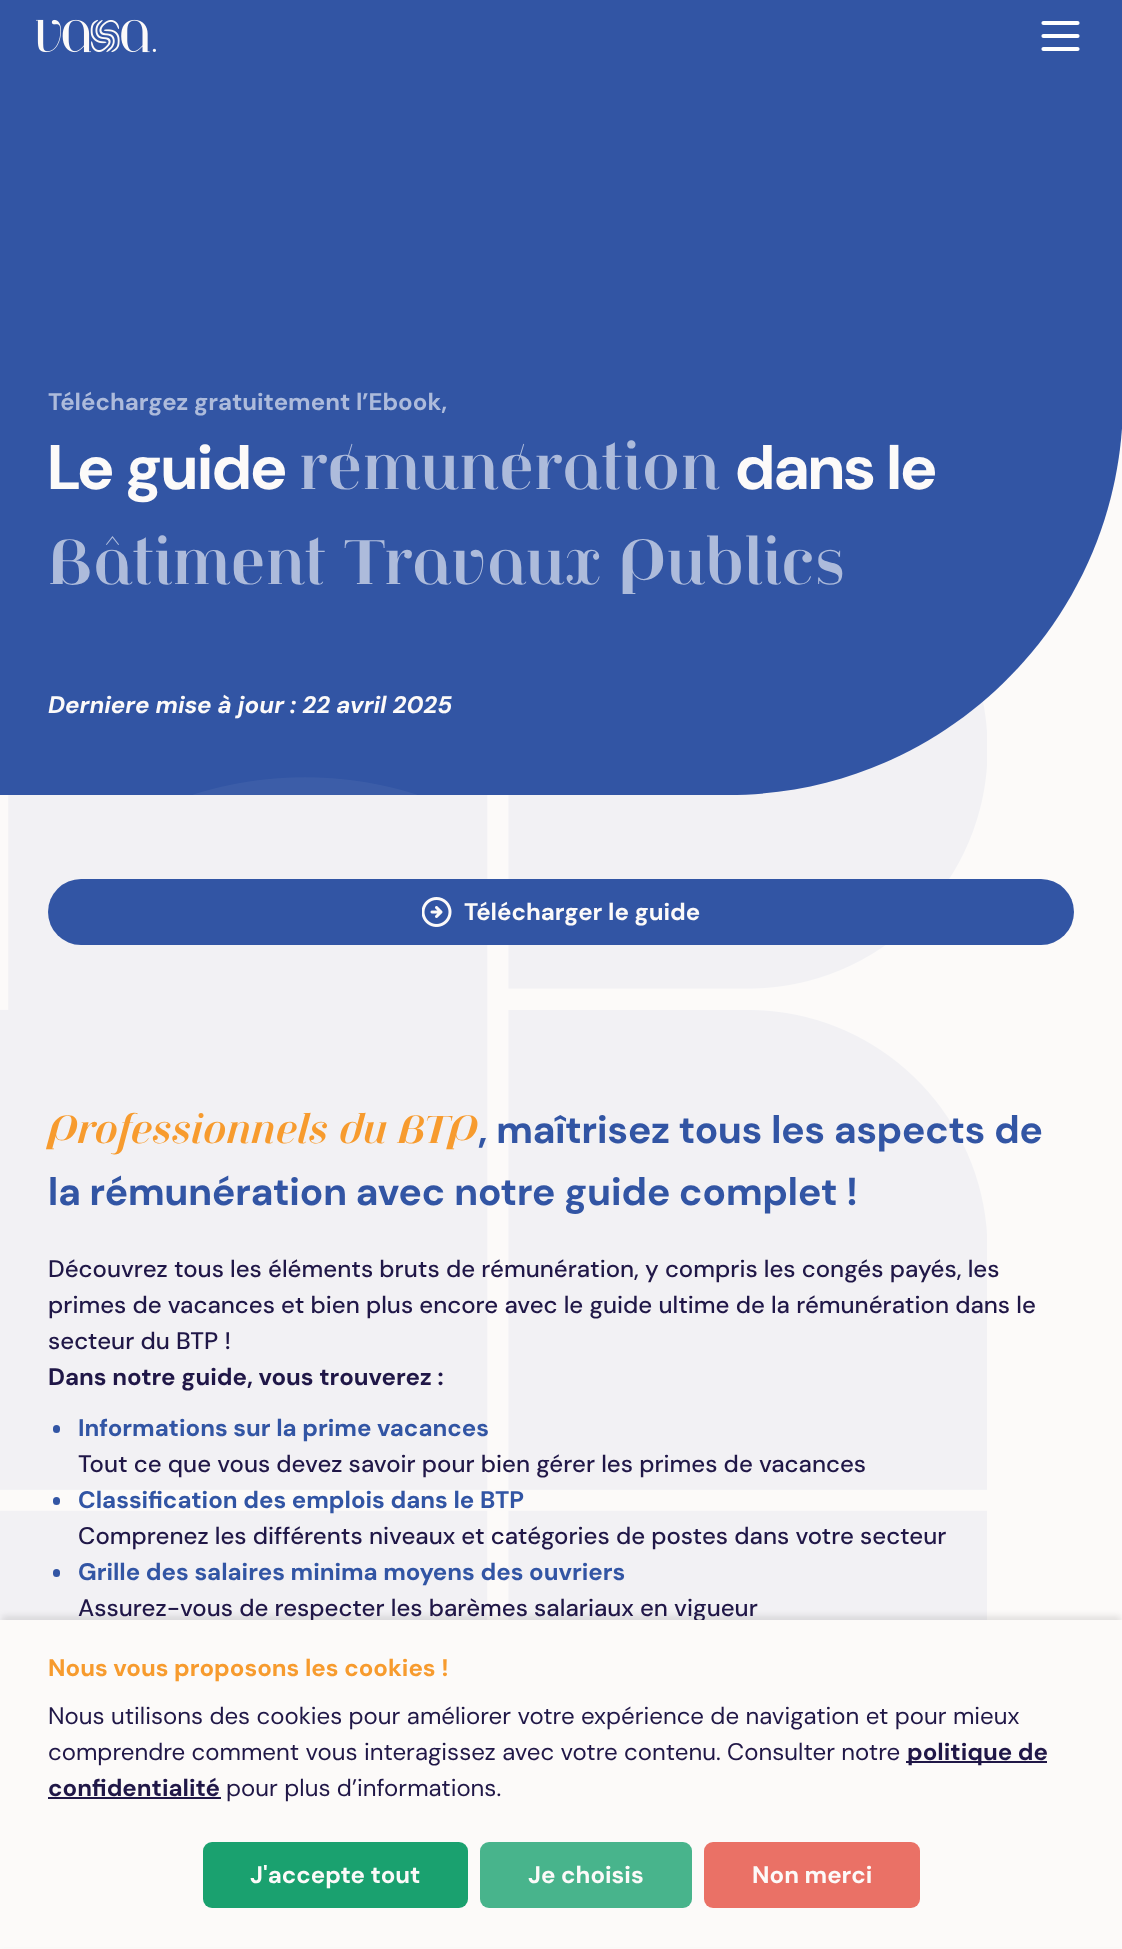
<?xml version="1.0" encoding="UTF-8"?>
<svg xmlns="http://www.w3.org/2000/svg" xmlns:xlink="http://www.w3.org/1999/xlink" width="1122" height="1949">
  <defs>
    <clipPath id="clip1"><rect y="72" width="1122" height="723" /></clipPath>
  </defs>
  <rect width="100%" height="100%" fill="#fcfaf9" />
  <rect width="1122" height="72" fill="#3255a4" />
  <image x="36" y="19" width="120" height="34" xlink:href="image1.png" />
  <path d="M 1043.5 36 h 34 m -34 -13 h 34 m -34 26 h 34" fill="none" stroke="#ffffff" stroke-width="4.2" stroke-linecap="round" stroke-linejoin="round" />
  <image x="0" y="701" width="987" height="919" xlink:href="image2.png" />
  <g clip-path="url(#clip1)">
    <path d="M -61 795 h 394 v -789 h -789 v 394 c 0 218 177 395 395 395 z" fill="#3255a4" />
    <path d="M 728 795 h -395 v -789 h 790 v 394 c 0 218 -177 395 -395 395 z" fill="#3255a4" />
  </g>
  <image x="193" y="777" width="224" height="18" xlink:href="image3.png" />
  <rect x="48" y="879" width="1026" height="66" rx="33" fill="#3255a4" />
  <image x="422" y="897" width="30" height="30" xlink:href="image4.png" />
  <rect x="53" y="1425" width="7" height="8" rx="3.5" fill="#3255a4" />
  <rect x="53" y="1497" width="7" height="8" rx="3.5" fill="#3255a4" />
  <rect x="53" y="1569" width="7" height="8" rx="3.5" fill="#3255a4" />
  <rect x="2" y="1616" width="1119" height="327" fill="#000000" fill-opacity="0.1" filter="blur(3px)" />
  <text x="48" y="410" style="font-family: DM Sans; font-size: 24px; font-weight: bold; fill: #adbbdb">Téléchargez gratuitement l’Ebook,</text>
  <text x="48" y="489" style="font-family: 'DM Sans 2'; font-size: 63px; font-weight: bold; fill: #fcfaf9">Le guide</text>
  <text x="299" y="489" style="font-family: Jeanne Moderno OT; font-size: 63px; font-weight: bold; fill: #adbbdb">rémunération</text>
  <text x="736" y="489" style="font-family: 'DM Sans 2'; font-size: 63px; font-weight: bold; fill: #fcfaf9">dans le</text>
  <text x="48" y="584" style="font-family: Jeanne Moderno OT; font-size: 63px; font-weight: bold; fill: #adbbdb">Bâtiment Travaux Publics</text>
  <text x="48" y="713" style="font-family: DM Sans; font-size: 24px; font-weight: bold; font-style: italic; fill: #fcfaf9">Derniere mise à jour : 22 avril 2025</text>
  <text x="464" y="920" style="font-family: DM Sans; font-size: 24px; font-weight: bold; fill: #fcfaf9">Télécharger le guide</text>
  <text x="48" y="1143" style="font-family: Jeanne Moderno OT; font-size: 39px; font-weight: bold; font-style: italic; fill: #f79b2e">Professionnels du BTP</text>
  <text x="478" y="1143" style="font-family: 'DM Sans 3'; font-size: 39px; font-weight: bold; fill: #3255a4">, maîtrisez tous les aspects de</text>
  <text x="48" y="1205" style="font-family: 'DM Sans 3'; font-size: 39px; font-weight: bold; fill: #3255a4">la rémunération avec notre guide complet !</text>
  <text x="48" y="1277" style="font-family: DM Sans; font-size: 24px; font-weight: 500; fill: #201747">Découvrez tous les éléments bruts de rémunération, y compris les congés payés, les</text>
  <text x="48" y="1313" style="font-family: DM Sans; font-size: 24px; font-weight: 500; fill: #201747">primes de vacances et bien plus encore avec le guide ultime de la rémunération dans le</text>
  <text x="48" y="1349" style="font-family: DM Sans; font-size: 24px; font-weight: 500; fill: #201747">secteur du BTP !</text>
  <text x="48" y="1385" style="font-family: DM Sans; font-size: 24px; font-weight: bold; fill: #201747">Dans notre guide, vous trouverez :</text>
  <text x="78" y="1436" style="font-family: DM Sans; font-size: 24px; font-weight: bold; fill: #3255a4">Informations sur la prime vacances</text>
  <text x="78" y="1472" style="font-family: DM Sans; font-size: 24px; font-weight: 500; fill: #201747">Tout ce que vous devez savoir pour bien gérer les primes de vacances</text>
  <text x="78" y="1508" style="font-family: DM Sans; font-size: 24px; font-weight: bold; fill: #3255a4">Classification des emplois dans le BTP</text>
  <text x="78" y="1544" style="font-family: DM Sans; font-size: 24px; font-weight: 500; fill: #201747">Comprenez les différents niveaux et catégories de postes dans votre secteur</text>
  <text x="78" y="1580" style="font-family: DM Sans; font-size: 24px; font-weight: bold; fill: #3255a4">Grille des salaires minima moyens des ouvriers</text>
  <text x="78" y="1616" style="font-family: DM Sans; font-size: 24px; font-weight: 500; fill: #201747">Assurez-vous de respecter les barèmes salariaux en vigueur</text>
  <rect y="1620" width="1122" height="327" fill="#fcfaf9" />
  <text x="48" y="1676" style="font-family: DM Sans; font-size: 24px; font-weight: bold; fill: #f79b2e">Nous vous proposons les cookies !</text>
  <text x="48" y="1724" style="font-family: DM Sans; font-size: 24px; fill: #201747">Nous utilisons des cookies pour améliorer votre expérience de navigation et pour mieux</text>
  <text x="48" y="1760" style="font-family: DM Sans; font-size: 24px; fill: #201747">comprendre comment vous interagissez avec votre contenu. Consulter notre</text>
  <rect x="906" y="1761" width="141" height="2" fill="#201747" />
  <text x="907" y="1760" style="font-family: DM Sans; font-size: 24px; font-weight: bold; fill: #201747">politique de</text>
  <text x="48" y="1796" style="font-family: DM Sans; font-size: 24px; font-weight: bold; fill: #201747">confidentialité</text>
  <rect x="48" y="1797" width="173" height="2" fill="#201747" />
  <text x="226" y="1796" style="font-family: DM Sans; font-size: 24px; fill: #201747">pour plus d’informations.</text>
  <rect x="203" y="1842" width="265" height="66" rx="9" fill="#1aa16f" />
  <text x="250" y="1883" style="font-family: DM Sans; font-size: 24px; font-weight: bold; fill: #fcfaf9">J'accepte tout</text>
  <rect x="480" y="1842" width="212" height="66" rx="9" fill="#48b48c" />
  <text x="528" y="1883" style="font-family: DM Sans; font-size: 24px; font-weight: bold; fill: #fcfaf9">Je choisis</text>
  <rect x="704" y="1842" width="216" height="66" rx="9" fill="#ea7166" />
  <text x="752" y="1883" style="font-family: DM Sans; font-size: 24px; font-weight: bold; fill: #fcfaf9">Non merci</text>
</svg>
